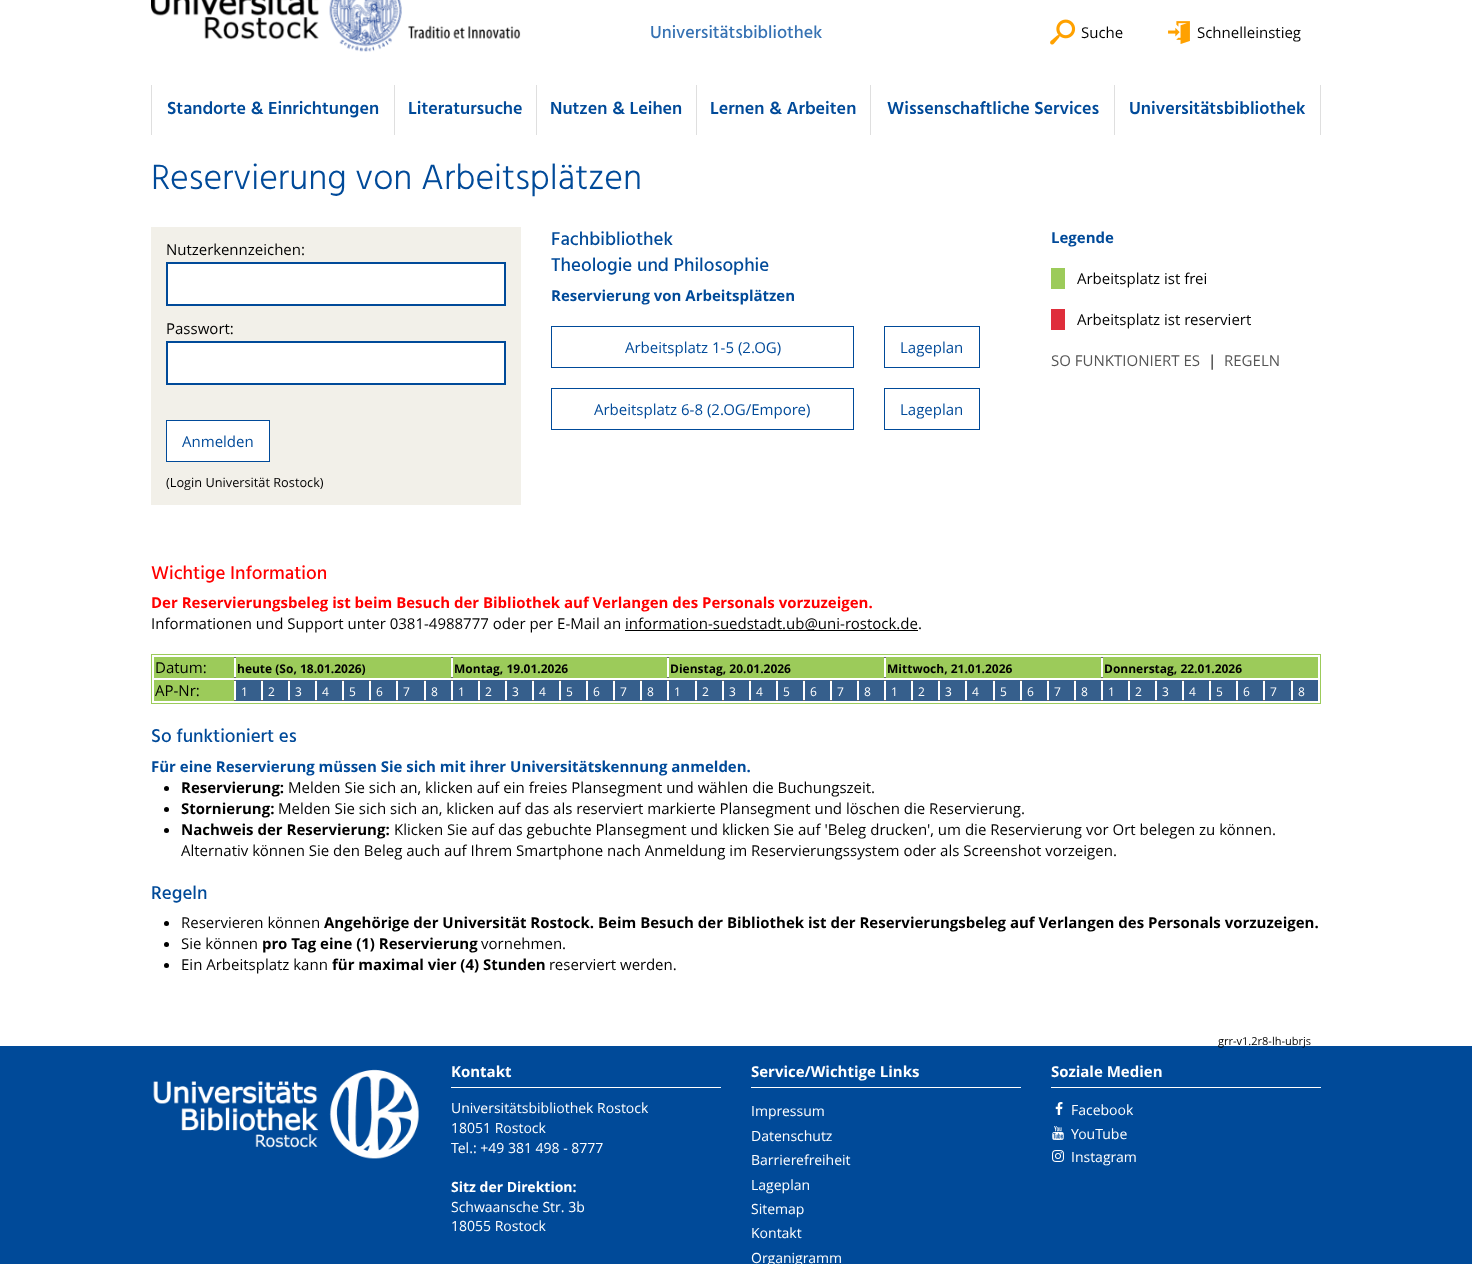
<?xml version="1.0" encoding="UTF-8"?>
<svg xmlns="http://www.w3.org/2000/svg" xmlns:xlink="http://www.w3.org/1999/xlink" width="1472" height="1264">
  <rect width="100%" height="100%" fill="#ffffff" />
  <image x="151" y="0" width="370" height="52" xlink:href="image1.png" />
  <image x="1050" y="19" width="26" height="26" xlink:href="image2.png" />
  <image x="1168" y="21" width="22" height="23" xlink:href="image3.png" />
  <rect x="151" y="85" width="1" height="50" fill="#dfdfdf" />
  <rect x="394" y="85" width="1" height="50" fill="#dfdfdf" />
  <rect x="536" y="85" width="1" height="50" fill="#dfdfdf" />
  <rect x="696" y="85" width="1" height="50" fill="#dfdfdf" />
  <rect x="870" y="85" width="1" height="50" fill="#dfdfdf" />
  <rect x="1320" y="85" width="1" height="50" fill="#dfdfdf" />
  <rect x="1114" y="85" width="1" height="50" fill="#dfdfdf" />
  <rect x="151" y="227" width="370" height="278" fill="#f2f0e9" />
  <rect x="167" y="263" width="338" height="42" fill="#ffffff" stroke="#004a99" stroke-width="2" />
  <rect x="167" y="342" width="338" height="42" fill="#ffffff" stroke="#004a99" stroke-width="2" />
  <rect x="166.5" y="420.5" width="103" height="41" fill="#ffffff" stroke="#004a99" />
  <rect x="551.5" y="326.5" width="302" height="41" fill="none" stroke="#004a99" />
  <rect x="884.5" y="326.5" width="95" height="41" fill="none" stroke="#004a99" />
  <rect x="551.5" y="388.5" width="302" height="41" fill="none" stroke="#004a99" />
  <rect x="884.5" y="388.5" width="95" height="41" fill="none" stroke="#004a99" />
  <rect x="1051" y="268" width="14" height="21" fill="#9ccb5a" />
  <rect x="1051" y="309" width="14" height="21" fill="#df2e3b" />
  <rect x="625" y="630" width="293" height="1" fill="#000000" />
  <rect x="151.5" y="654.5" width="1169" height="49" fill="none" stroke="#9ccb5a" />
  <rect x="154.5" y="657.5" width="1163" height="20" fill="none" stroke="#686868" />
  <rect x="154" y="657" width="80" height="21" fill="#9ccb5a" />
  <rect x="236" y="657" width="215" height="21" fill="#9ccb5a" />
  <rect x="453" y="657" width="214" height="21" fill="#9ccb5a" />
  <rect x="669" y="657" width="215" height="21" fill="#9ccb5a" />
  <rect x="886" y="657" width="215" height="21" fill="#9ccb5a" />
  <rect x="1103" y="657" width="215" height="21" fill="#9ccb5a" />
  <rect x="154.5" y="680.5" width="1163" height="20" fill="none" stroke="#686868" />
  <rect x="154" y="680" width="80" height="21" fill="#9ccb5a" />
  <rect x="236" y="680" width="25" height="21" fill="#365f8c" />
  <rect x="263" y="680" width="25" height="21" fill="#365f8c" />
  <rect x="290" y="680" width="25" height="21" fill="#365f8c" />
  <rect x="317" y="680" width="25" height="21" fill="#365f8c" />
  <rect x="344" y="680" width="25" height="21" fill="#365f8c" />
  <rect x="371" y="680" width="25" height="21" fill="#365f8c" />
  <rect x="398" y="680" width="26" height="21" fill="#365f8c" />
  <rect x="426" y="680" width="25" height="21" fill="#365f8c" />
  <rect x="453" y="680" width="25" height="21" fill="#365f8c" />
  <rect x="480" y="680" width="25" height="21" fill="#365f8c" />
  <rect x="507" y="680" width="25" height="21" fill="#365f8c" />
  <rect x="534" y="680" width="25" height="21" fill="#365f8c" />
  <rect x="561" y="680" width="25" height="21" fill="#365f8c" />
  <rect x="588" y="680" width="25" height="21" fill="#365f8c" />
  <rect x="615" y="680" width="25" height="21" fill="#365f8c" />
  <rect x="642" y="680" width="25" height="21" fill="#365f8c" />
  <rect x="669" y="680" width="26" height="21" fill="#365f8c" />
  <rect x="697" y="680" width="25" height="21" fill="#365f8c" />
  <rect x="724" y="680" width="25" height="21" fill="#365f8c" />
  <rect x="751" y="680" width="25" height="21" fill="#365f8c" />
  <rect x="778" y="680" width="25" height="21" fill="#365f8c" />
  <rect x="805" y="680" width="25" height="21" fill="#365f8c" />
  <rect x="832" y="680" width="25" height="21" fill="#365f8c" />
  <rect x="859" y="680" width="25" height="21" fill="#365f8c" />
  <rect x="886" y="680" width="25" height="21" fill="#365f8c" />
  <rect x="913" y="680" width="25" height="21" fill="#365f8c" />
  <rect x="940" y="680" width="25" height="21" fill="#365f8c" />
  <rect x="967" y="680" width="26" height="21" fill="#365f8c" />
  <rect x="995" y="680" width="25" height="21" fill="#365f8c" />
  <rect x="1022" y="680" width="25" height="21" fill="#365f8c" />
  <rect x="1049" y="680" width="25" height="21" fill="#365f8c" />
  <rect x="1076" y="680" width="25" height="21" fill="#365f8c" />
  <rect x="1103" y="680" width="25" height="21" fill="#365f8c" />
  <rect x="1130" y="680" width="25" height="21" fill="#365f8c" />
  <rect x="1157" y="680" width="25" height="21" fill="#365f8c" />
  <rect x="1184" y="680" width="25" height="21" fill="#365f8c" />
  <rect x="1211" y="680" width="25" height="21" fill="#365f8c" />
  <rect x="1238" y="680" width="25" height="21" fill="#365f8c" />
  <rect x="1265" y="680" width="26" height="21" fill="#365f8c" />
  <rect x="1293" y="680" width="25" height="21" fill="#365f8c" />
  <circle cx="166.5" cy="788.5" r="2.5" fill="#000000" />
  <circle cx="166.5" cy="809.5" r="2.5" fill="#000000" />
  <circle cx="166.5" cy="830.5" r="2.5" fill="#000000" />
  <circle cx="166.5" cy="923.5" r="2.5" fill="#000000" />
  <circle cx="166.5" cy="944.5" r="2.5" fill="#000000" />
  <circle cx="166.5" cy="965.5" r="2.5" fill="#000000" />
  <rect y="1046" width="1472" height="218" fill="#004a99" />
  <image x="153" y="1069" width="266" height="90" xlink:href="image4.png" />
  <rect x="451" y="1087" width="270" height="1" fill="#ffffff" />
  <rect x="751" y="1087" width="270" height="1" fill="#ffffff" />
  <rect x="1051" y="1087" width="270" height="1" fill="#ffffff" />
  <image x="1055" y="1102" width="8" height="13" xlink:href="image5.png" />
  <image x="1052" y="1126" width="12" height="14" xlink:href="image6.png" />
  <image x="1052" y="1150" width="12" height="12" xlink:href="image7.png" />
  <text x="650" y="38" style="font-family: Hind; font-size: 18px; font-weight: 500; fill: #3672b3">Universitätsbibliothek</text>
  <text x="1081" y="38" style="font-family: Open Sans; font-size: 15px; fill: #000000">Suche</text>
  <text x="1197" y="38" style="font-family: Open Sans; font-size: 15px; fill: #000000">Schnelleinstieg</text>
  <text x="167" y="114" style="font-family: Hind; font-size: 18px; font-weight: 600; fill: #004a99">Standorte &amp; Einrichtungen</text>
  <text x="408" y="114" style="font-family: Hind; font-size: 18px; font-weight: 600; fill: #004a99">Literatursuche</text>
  <text x="550" y="114" style="font-family: Hind; font-size: 18px; font-weight: 600; fill: #004a99">Nutzen &amp; Leihen</text>
  <text x="710" y="114" style="font-family: Hind; font-size: 18px; font-weight: 600; fill: #004a99">Lernen &amp; Arbeiten</text>
  <text x="887" y="114" style="font-family: Hind; font-size: 18px; font-weight: 600; fill: #004a99">Wissenschaftliche Services</text>
  <text x="1129" y="114" style="font-family: Hind; font-size: 18px; font-weight: 600; fill: #004a99">Universitätsbibliothek</text>
  <text x="151" y="189" style="font-family: Hind; font-size: 36px; font-weight: 300; fill: #004a99">Reservierung von Arbeitsplätzen</text>
  <text x="166" y="255" style="font-family: Open Sans; font-size: 15px; fill: #000000">Nutzerkennzeichen:</text>
  <text x="166" y="334" style="font-family: Open Sans; font-size: 15px; fill: #000000">Passwort:</text>
  <text x="182" y="447" style="font-family: Open Sans; font-size: 15px; fill: #004a99">Anmelden</text>
  <text x="166" y="487" style="font-family: Open Sans; font-size: 12.75px; fill: #000000">(Login Universität Rostock)</text>
  <text x="551" y="245" style="font-family: Hind; font-size: 19px; font-weight: 500; fill: #004a99">Fachbibliothek</text>
  <text x="551" y="271" style="font-family: Hind; font-size: 19px; font-weight: 500; fill: #004a99">Theologie und Philosophie</text>
  <text x="551" y="301" style="font-family: Open Sans; font-size: 15px; font-weight: bold; fill: #004a99">Reservierung von Arbeitsplätzen</text>
  <text x="625" y="353" style="font-family: Open Sans; font-size: 15px; fill: #004a99">Arbeitsplatz 1-5 (2.OG)</text>
  <text x="900" y="353" style="font-family: Open Sans; font-size: 15px; fill: #004a99">Lageplan</text>
  <text x="594" y="415" style="font-family: Open Sans; font-size: 15px; fill: #004a99">Arbeitsplatz 6-8 (2.OG/Empore)</text>
  <text x="900" y="415" style="font-family: Open Sans; font-size: 15px; fill: #004a99">Lageplan</text>
  <text x="1051" y="243" style="font-family: Open Sans; font-size: 15px; font-weight: bold; fill: #004a99">Legende</text>
  <text x="1077" y="284" style="font-family: Open Sans; font-size: 15px; fill: #000000">Arbeitsplatz ist frei</text>
  <text x="1077" y="325" style="font-family: Open Sans; font-size: 15px; fill: #000000">Arbeitsplatz ist reserviert</text>
  <text x="1051" y="366" style="font-family: Open Sans; font-size: 15px; fill: #555555">SO FUNKTIONIERT ES</text>
  <text x="1208" y="366" style="font-family: Open Sans; font-size: 15px; fill: #000000">|</text>
  <text x="1224" y="366" style="font-family: Open Sans; font-size: 15px; fill: #555555">REGELN</text>
  <text x="151" y="579" style="font-family: Hind; font-size: 19px; font-weight: 500; fill: #ff0000">Wichtige Information</text>
  <text x="151" y="608" style="font-family: Open Sans; font-size: 15px; font-weight: bold; fill: #ff0000">Der Reservierungsbeleg ist beim Besuch der Bibliothek auf Verlangen des Personals vorzuzeigen.</text>
  <text x="151" y="629" style="font-family: Open Sans; font-size: 15px; fill: #000000">Informationen und Support unter 0381-4988777 oder per E-Mail an</text>
  <text x="625" y="629" style="font-family: Open Sans; font-size: 15px; fill: #000000">information-suedstadt.ub@uni-rostock.de.</text>
  <text x="155" y="673" style="font-family: Open Sans; font-size: 15px; fill: #000000">Datum:</text>
  <text x="237" y="673" style="font-family: Open Sans; font-size: 12px; font-weight: bold; fill: #000000">heute (So, 18.01.2026)</text>
  <text x="454" y="673" style="font-family: Open Sans; font-size: 12px; font-weight: bold; fill: #000000">Montag, 19.01.2026</text>
  <text x="670" y="673" style="font-family: Open Sans; font-size: 12px; font-weight: bold; fill: #000000">Dienstag, 20.01.2026</text>
  <text x="887" y="673" style="font-family: Open Sans; font-size: 12px; font-weight: bold; fill: #000000">Mittwoch, 21.01.2026</text>
  <text x="1104" y="673" style="font-family: Open Sans; font-size: 12px; font-weight: bold; fill: #000000">Donnerstag, 22.01.2026</text>
  <text x="155" y="696" style="font-family: Open Sans; font-size: 15px; fill: #000000">AP-Nr:</text>
  <text x="241" y="696" style="font-family: Open Sans; font-size: 12px; fill: #ffffff">1</text>
  <text x="268" y="696" style="font-family: Open Sans; font-size: 12px; fill: #ffffff">2</text>
  <text x="295" y="696" style="font-family: Open Sans; font-size: 12px; fill: #ffffff">3</text>
  <text x="322" y="696" style="font-family: Open Sans; font-size: 12px; fill: #ffffff">4</text>
  <text x="349" y="696" style="font-family: Open Sans; font-size: 12px; fill: #ffffff">5</text>
  <text x="376" y="696" style="font-family: Open Sans; font-size: 12px; fill: #ffffff">6</text>
  <text x="403" y="696" style="font-family: Open Sans; font-size: 12px; fill: #ffffff">7</text>
  <text x="431" y="696" style="font-family: Open Sans; font-size: 12px; fill: #ffffff">8</text>
  <text x="458" y="696" style="font-family: Open Sans; font-size: 12px; fill: #ffffff">1</text>
  <text x="485" y="696" style="font-family: Open Sans; font-size: 12px; fill: #ffffff">2</text>
  <text x="512" y="696" style="font-family: Open Sans; font-size: 12px; fill: #ffffff">3</text>
  <text x="539" y="696" style="font-family: Open Sans; font-size: 12px; fill: #ffffff">4</text>
  <text x="566" y="696" style="font-family: Open Sans; font-size: 12px; fill: #ffffff">5</text>
  <text x="593" y="696" style="font-family: Open Sans; font-size: 12px; fill: #ffffff">6</text>
  <text x="620" y="696" style="font-family: Open Sans; font-size: 12px; fill: #ffffff">7</text>
  <text x="647" y="696" style="font-family: Open Sans; font-size: 12px; fill: #ffffff">8</text>
  <text x="674" y="696" style="font-family: Open Sans; font-size: 12px; fill: #ffffff">1</text>
  <text x="702" y="696" style="font-family: Open Sans; font-size: 12px; fill: #ffffff">2</text>
  <text x="729" y="696" style="font-family: Open Sans; font-size: 12px; fill: #ffffff">3</text>
  <text x="756" y="696" style="font-family: Open Sans; font-size: 12px; fill: #ffffff">4</text>
  <text x="783" y="696" style="font-family: Open Sans; font-size: 12px; fill: #ffffff">5</text>
  <text x="810" y="696" style="font-family: Open Sans; font-size: 12px; fill: #ffffff">6</text>
  <text x="837" y="696" style="font-family: Open Sans; font-size: 12px; fill: #ffffff">7</text>
  <text x="864" y="696" style="font-family: Open Sans; font-size: 12px; fill: #ffffff">8</text>
  <text x="891" y="696" style="font-family: Open Sans; font-size: 12px; fill: #ffffff">1</text>
  <text x="918" y="696" style="font-family: Open Sans; font-size: 12px; fill: #ffffff">2</text>
  <text x="945" y="696" style="font-family: Open Sans; font-size: 12px; fill: #ffffff">3</text>
  <text x="972" y="696" style="font-family: Open Sans; font-size: 12px; fill: #ffffff">4</text>
  <text x="1000" y="696" style="font-family: Open Sans; font-size: 12px; fill: #ffffff">5</text>
  <text x="1027" y="696" style="font-family: Open Sans; font-size: 12px; fill: #ffffff">6</text>
  <text x="1054" y="696" style="font-family: Open Sans; font-size: 12px; fill: #ffffff">7</text>
  <text x="1081" y="696" style="font-family: Open Sans; font-size: 12px; fill: #ffffff">8</text>
  <text x="1108" y="696" style="font-family: Open Sans; font-size: 12px; fill: #ffffff">1</text>
  <text x="1135" y="696" style="font-family: Open Sans; font-size: 12px; fill: #ffffff">2</text>
  <text x="1162" y="696" style="font-family: Open Sans; font-size: 12px; fill: #ffffff">3</text>
  <text x="1189" y="696" style="font-family: Open Sans; font-size: 12px; fill: #ffffff">4</text>
  <text x="1216" y="696" style="font-family: Open Sans; font-size: 12px; fill: #ffffff">5</text>
  <text x="1243" y="696" style="font-family: Open Sans; font-size: 12px; fill: #ffffff">6</text>
  <text x="1270" y="696" style="font-family: Open Sans; font-size: 12px; fill: #ffffff">7</text>
  <text x="1298" y="696" style="font-family: Open Sans; font-size: 12px; fill: #ffffff">8</text>
  <text x="151" y="742" style="font-family: Hind; font-size: 19px; font-weight: 500; fill: #004a99">So funktioniert es</text>
  <text x="151" y="772" style="font-family: Open Sans; font-size: 15px; font-weight: bold; fill: #004a99">Für eine Reservierung müssen Sie sich mit ihrer Universitätskennung anmelden.</text>
  <text x="181" y="793" style="font-family: Open Sans; font-size: 15px; font-weight: bold; fill: #000000">Reservierung:</text>
  <text x="288" y="793" style="font-family: Open Sans; font-size: 15px; fill: #000000">Melden Sie sich an, klicken auf ein freies Plansegment und wählen die Buchungszeit.</text>
  <text x="181" y="814" style="font-family: Open Sans; font-size: 15px; font-weight: bold; fill: #000000">Stornierung:</text>
  <text x="278" y="814" style="font-family: Open Sans; font-size: 15px; fill: #000000">Melden Sie sich sich an, klicken auf das als reserviert markierte Plansegment und löschen die Reservierung.</text>
  <text x="181" y="835" style="font-family: Open Sans; font-size: 15px; font-weight: bold; fill: #000000">Nachweis der Reservierung:</text>
  <text x="394" y="835" style="font-family: Open Sans; font-size: 15px; fill: #000000">Klicken Sie auf das gebuchte Plansegment und klicken Sie auf 'Beleg drucken', um die Reservierung vor Ort belegen zu können.</text>
  <text x="181" y="856" style="font-family: Open Sans; font-size: 15px; fill: #000000">Alternativ können Sie den Beleg auch auf Ihrem Smartphone nach Anmeldung im Reservierungssystem oder als Screenshot vorzeigen.</text>
  <text x="151" y="899" style="font-family: Hind; font-size: 19px; font-weight: 500; fill: #004a99">Regeln</text>
  <text x="181" y="928" style="font-family: Open Sans; font-size: 15px; fill: #000000">Reservieren können</text>
  <text x="324" y="928" style="font-family: Open Sans; font-size: 15px; font-weight: bold; fill: #000000">Angehörige der Universität Rostock. Beim Besuch der Bibliothek ist der Reservierungsbeleg auf Verlangen des Personals vorzuzeigen.</text>
  <text x="181" y="949" style="font-family: Open Sans; font-size: 15px; fill: #000000">Sie können</text>
  <text x="262" y="949" style="font-family: Open Sans; font-size: 15px; font-weight: bold; fill: #000000">pro Tag eine (1) Reservierung</text>
  <text x="481" y="949" style="font-family: Open Sans; font-size: 15px; fill: #000000">vornehmen.</text>
  <text x="181" y="970" style="font-family: Open Sans; font-size: 15px; fill: #000000">Ein Arbeitsplatz kann</text>
  <text x="332" y="970" style="font-family: Open Sans; font-size: 15px; font-weight: bold; fill: #000000">für maximal vier (4) Stunden</text>
  <text x="549" y="970" style="font-family: Open Sans; font-size: 15px; fill: #000000">reserviert werden.</text>
  <text x="1218" y="1045" style="font-family: Open Sans; font-size: 11px; fill: #000000">grr-v1.2r8-lh-ubrjs</text>
  <text x="451" y="1077" style="font-family: Open Sans; font-size: 15px; font-weight: bold; fill: #ffffff">Kontakt</text>
  <text x="451" y="1113" style="font-family: Open Sans; font-size: 14px; fill: #ffffff">Universitätsbibliothek Rostock</text>
  <text x="451" y="1133" style="font-family: Open Sans; font-size: 14px; fill: #ffffff">18051 Rostock</text>
  <text x="451" y="1153" style="font-family: Open Sans; font-size: 14px; fill: #ffffff">Tel.: +49 381 498 - 8777</text>
  <text x="451" y="1192" style="font-family: Open Sans; font-size: 14px; font-weight: bold; fill: #ffffff">Sitz der Direktion:</text>
  <text x="451" y="1212" style="font-family: Open Sans; font-size: 14px; fill: #ffffff">Schwaansche Str. 3b</text>
  <text x="451" y="1231" style="font-family: Open Sans; font-size: 14px; fill: #ffffff">18055 Rostock</text>
  <text x="751" y="1077" style="font-family: Open Sans; font-size: 15px; font-weight: bold; fill: #ffffff">Service/Wichtige Links</text>
  <text x="751" y="1116" style="font-family: Open Sans; font-size: 14px; fill: #ffffff">Impressum</text>
  <text x="751" y="1141" style="font-family: Open Sans; font-size: 14px; fill: #ffffff">Datenschutz</text>
  <text x="751" y="1165" style="font-family: Open Sans; font-size: 14px; fill: #ffffff">Barrierefreiheit</text>
  <text x="751" y="1190" style="font-family: Open Sans; font-size: 14px; fill: #ffffff">Lageplan</text>
  <text x="751" y="1214" style="font-family: Open Sans; font-size: 14px; fill: #ffffff">Sitemap</text>
  <text x="751" y="1238" style="font-family: Open Sans; font-size: 14px; fill: #ffffff">Kontakt</text>
  <text x="751" y="1263" style="font-family: Open Sans; font-size: 14px; fill: #ffffff">Organigramm</text>
  <text x="1051" y="1077" style="font-family: Open Sans; font-size: 15px; font-weight: bold; fill: #ffffff">Soziale Medien</text>
  <text x="1071" y="1115" style="font-family: Open Sans; font-size: 14px; fill: #ffffff">Facebook</text>
  <text x="1071" y="1139" style="font-family: Open Sans; font-size: 14px; fill: #ffffff">YouTube</text>
  <text x="1071" y="1162" style="font-family: Open Sans; font-size: 14px; fill: #ffffff">Instagram</text>
</svg>
